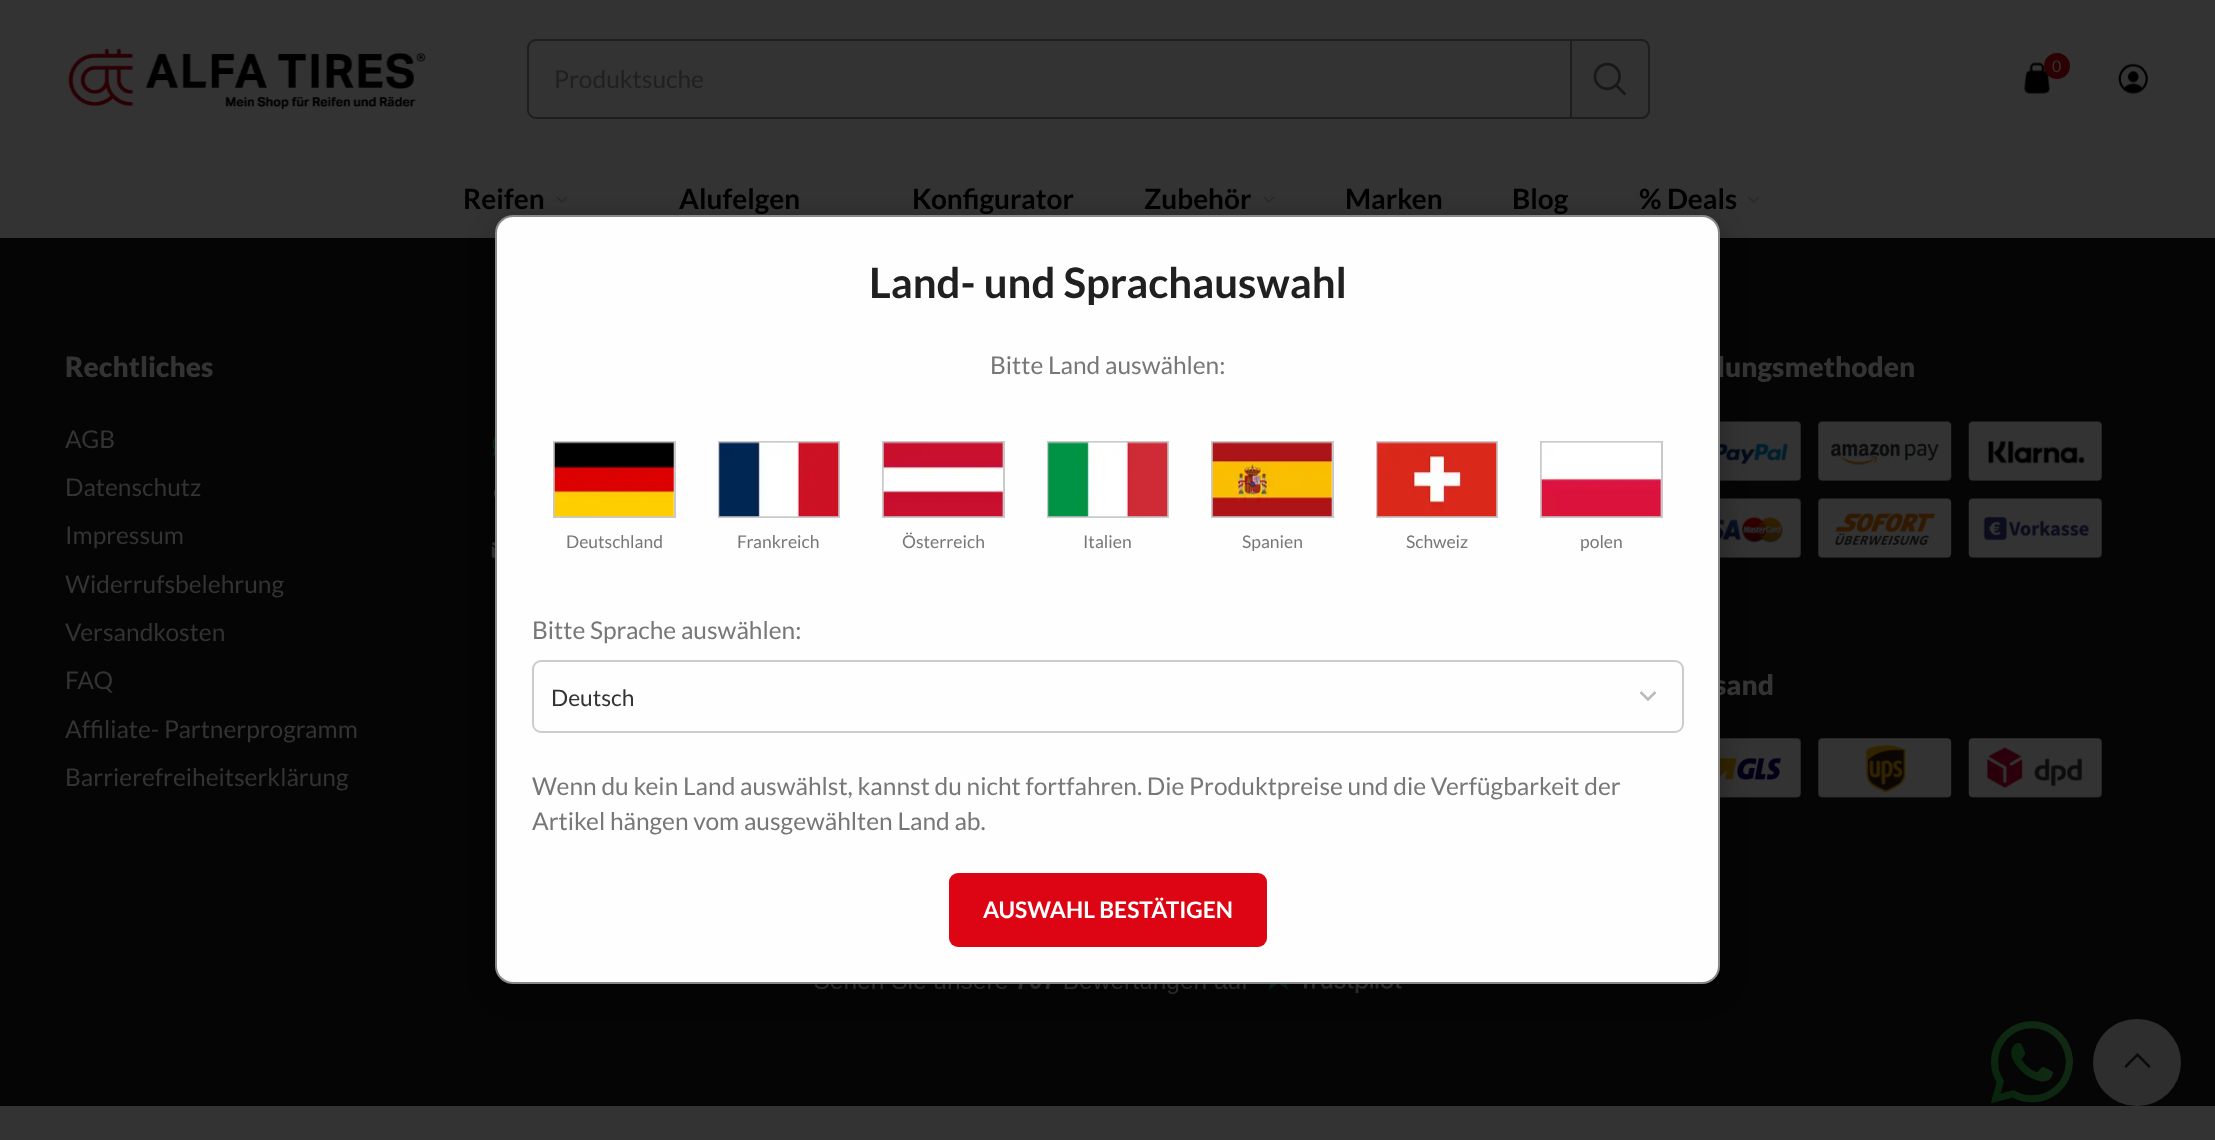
<?xml version="1.0" encoding="UTF-8"?>
<svg xmlns="http://www.w3.org/2000/svg" xmlns:xlink="http://www.w3.org/1999/xlink" width="2215" height="1140">
  <rect width="100%" height="100%" fill="#333333" />
  <image x="68" y="48" width="358" height="61" xlink:href="image1.png" />
  <image x="2023" y="62" width="27" height="32" xlink:href="image2.png" />
  <circle cx="2057" cy="66" r="13" fill="#2c0104" />
  <image x="2118" y="63" width="30" height="31" xlink:href="image3.png" />
  <rect x="528" y="40" width="1121" height="78" rx="8" fill="none" stroke="#1e1e1e" stroke-width="2" />
  <path d="M 1571 40 h 70 c 4.5 0 8 3.5 8 8 v 62 c 0 4.5 -3.5 8 -8 8 h -70 z" fill="#323232" stroke="#1e1e1e" stroke-width="2" />
  <image x="1593" y="62" width="34" height="34" xlink:href="image4.png" />
  <image x="556" y="197" width="11" height="6" xlink:href="image5.png" />
  <image x="1263" y="197" width="11" height="6" xlink:href="image5.png" />
  <image x="1748" y="197" width="11" height="6" xlink:href="image6.png" />
  <rect y="238" width="2215" height="868" fill="#050505" />
  <image x="492" y="437" width="3" height="19" xlink:href="image7.png" />
  <image x="493" y="489" width="2" height="8" xlink:href="image8.png" />
  <image x="491" y="542" width="4" height="16" xlink:href="image9.png" />
  <image x="1720" y="421" width="81" height="60" xlink:href="image10.png" />
  <image x="1818" y="421" width="134" height="60" xlink:href="image11.png" />
  <image x="1968" y="421" width="134" height="60" xlink:href="image12.png" />
  <image x="1720" y="498" width="81" height="60" xlink:href="image13.png" />
  <image x="1818" y="498" width="134" height="60" xlink:href="image14.png" />
  <image x="1968" y="498" width="134" height="60" xlink:href="image15.png" />
  <image x="1720" y="738" width="81" height="60" xlink:href="image16.png" />
  <image x="1818" y="738" width="134" height="60" xlink:href="image17.png" />
  <image x="1968" y="738" width="134" height="60" xlink:href="image18.png" />
  <image x="814" y="984" width="588" height="10" xlink:href="image19.png" />
  <rect x="495" y="224" width="1225" height="768" rx="18" fill="#000000" fill-opacity="0.3" filter="blur(13px)" />
  <image x="1990" y="1021" width="83" height="83" xlink:href="image27.png" />
  <rect x="2093" y="1019" width="88" height="87" rx="43.5" fill="#2e2e2e" />
  <path d="M 2149 1068 l 1.5 -2 l -13 -13 l -13 13 l 1.5 2 l 11.5 -11.5 z" fill="#0a0a0a" />
  <text x="2052" y="72" style="font-family: Lato; font-size: 16px; fill: #333333">0</text>
  <text x="554" y="88" style="font-family: Lato; font-size: 24.5px; fill: #202020">Produktsuche</text>
  <text x="463" y="209" style="font-family: Lato; font-size: 28px; font-weight: bold; fill: #000000">Reifen</text>
  <text x="679" y="209" style="font-family: Lato; font-size: 28px; font-weight: bold; fill: #000000">Alufelgen</text>
  <text x="912" y="209" style="font-family: Lato; font-size: 28px; font-weight: bold; fill: #000000">Konfigurator</text>
  <text x="1144" y="209" style="font-family: Lato; font-size: 28px; font-weight: bold; fill: #000000">Zubehör</text>
  <text x="1345" y="209" style="font-family: Lato; font-size: 28px; font-weight: bold; fill: #000000">Marken</text>
  <text x="1512" y="209" style="font-family: Lato; font-size: 28px; font-weight: bold; fill: #000000">Blog</text>
  <text x="1639" y="209" style="font-family: Lato; font-size: 28px; font-weight: bold; fill: #000000">% Deals</text>
  <text x="65" y="377" style="font-family: Lato; font-size: 28px; font-weight: 900; fill: #333333">Rechtliches</text>
  <text x="65" y="448" style="font-family: Lato; font-size: 24.5px; fill: #333333">AGB</text>
  <text x="65" y="496" style="font-family: Lato; font-size: 24.5px; fill: #333333">Datenschutz</text>
  <text x="65" y="544" style="font-family: Lato; font-size: 24.5px; fill: #333333">Impressum</text>
  <text x="65" y="593" style="font-family: Lato; font-size: 24.5px; fill: #333333">Widerrufsbelehrung</text>
  <text x="65" y="641" style="font-family: Lato; font-size: 24.5px; fill: #333333">Versandkosten</text>
  <text x="65" y="689" style="font-family: Lato; font-size: 24.5px; fill: #333333">FAQ</text>
  <text x="65" y="738" style="font-family: Lato; font-size: 24.5px; fill: #333333">Affiliate- Partnerprogramm</text>
  <text x="65" y="786" style="font-family: Lato; font-size: 24.5px; fill: #333333">Barrierefreiheitserklärung</text>
  <text x="1717" y="377" style="font-family: Lato; font-size: 28px; font-weight: 900; fill: #333333">lungsmethoden</text>
  <text x="1714" y="695" style="font-family: Lato; font-size: 28px; font-weight: 900; fill: #333333">sand</text>
  <rect x="496" y="216" width="1223" height="767" rx="17" fill="#fefefe" stroke="#888888" stroke-width="2" />
  <text x="869" y="298" style="font-family: Lato; font-size: 42px; font-weight: bold; fill: #202020">Land- und Sprachauswahl</text>
  <text x="990" y="374" style="font-family: Lato; font-size: 24.5px; fill: #777777">Bitte Land auswählen:</text>
  <rect x="554" y="442" width="121" height="75" fill="none" stroke="#c9c9c9" stroke-width="2" />
  <image x="554" y="442" width="120" height="75" xlink:href="image20.png" />
  <text x="566" y="548" style="font-family: Lato; font-size: 17.5px; fill: #777777">Deutschland</text>
  <rect x="719" y="442" width="120" height="75" fill="none" stroke="#c9c9c9" stroke-width="2" />
  <image x="719" y="442" width="120" height="75" xlink:href="image21.png" />
  <text x="737" y="548" style="font-family: Lato; font-size: 17.5px; fill: #777777">Frankreich</text>
  <rect x="883" y="442" width="121" height="75" fill="none" stroke="#c9c9c9" stroke-width="2" />
  <image x="883" y="442" width="120" height="75" xlink:href="image22.png" />
  <text x="902" y="548" style="font-family: Lato; font-size: 17.5px; fill: #777777">Österreich</text>
  <rect x="1048" y="442" width="120" height="75" fill="none" stroke="#c9c9c9" stroke-width="2" />
  <image x="1048" y="442" width="120" height="75" xlink:href="image23.png" />
  <text x="1083" y="548" style="font-family: Lato; font-size: 17.5px; fill: #777777">Italien</text>
  <rect x="1212" y="442" width="121" height="75" fill="none" stroke="#c9c9c9" stroke-width="2" />
  <image x="1212" y="442" width="120" height="75" xlink:href="image24.png" />
  <text x="1242" y="548" style="font-family: Lato; font-size: 17.5px; fill: #777777">Spanien</text>
  <rect x="1377" y="442" width="120" height="75" fill="none" stroke="#c9c9c9" stroke-width="2" />
  <image x="1377" y="442" width="120" height="75" xlink:href="image25.png" />
  <text x="1406" y="548" style="font-family: Lato; font-size: 17.5px; fill: #777777">Schweiz</text>
  <rect x="1541" y="442" width="121" height="75" fill="none" stroke="#c9c9c9" stroke-width="2" />
  <image x="1541" y="442" width="120" height="75" xlink:href="image26.png" />
  <text x="1580" y="548" style="font-family: Lato; font-size: 17.5px; fill: #777777">polen</text>
  <text x="532" y="639" style="font-family: Lato; font-size: 24.5px; fill: #777777">Bitte Sprache auswählen:</text>
  <path d="M 1640.5 692 l 7.5 7.5 l 7.5 -7.5" fill="none" stroke="#bbbbbb" stroke-width="2.5" />
  <rect x="533" y="661" width="1150" height="71" rx="8" fill="none" stroke="#cccccc" stroke-width="2" />
  <text x="551" y="706" style="font-family: Lato; font-size: 22.75px; fill: #333333">Deutsch</text>
  <text x="532" y="795" style="font-family: Lato; font-size: 24.5px; fill: #777777">Wenn du kein Land auswählst, kannst du nicht fortfahren. Die Produktpreise und die Verfügbarkeit der</text>
  <text x="532" y="830" style="font-family: Lato; font-size: 24.5px; fill: #777777">Artikel hängen vom ausgewählten Land ab.</text>
  <rect x="949" y="873" width="318" height="74" rx="9" fill="#dd0513" />
  <text x="983" y="918" style="font-family: Lato; font-size: 22.75px; font-weight: bold; fill: #ffffff">AUSWAHL BESTÄTIGEN</text>
</svg>
